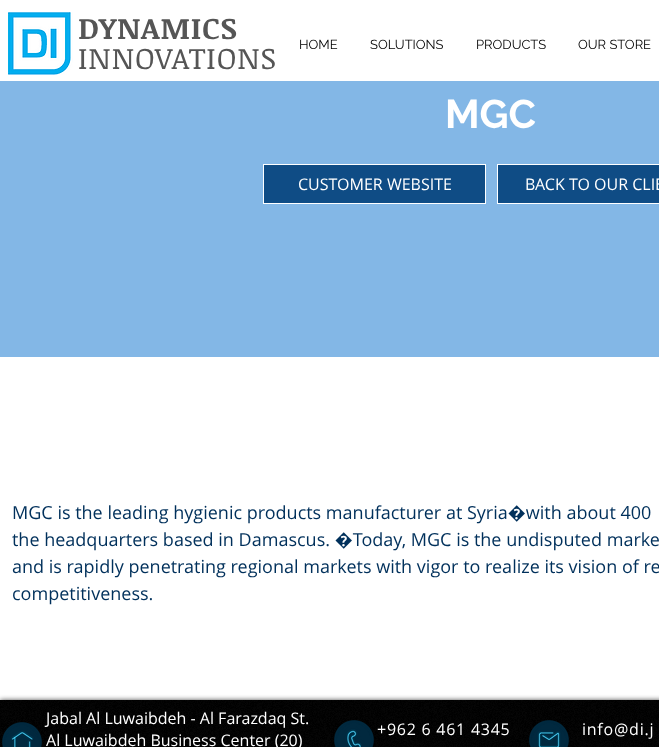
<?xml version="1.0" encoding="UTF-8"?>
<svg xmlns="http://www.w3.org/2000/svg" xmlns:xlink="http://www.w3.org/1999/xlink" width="659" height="747">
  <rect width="100%" height="100%" fill="#ffffff" />
  <image x="8" y="12" width="65" height="63" xlink:href="image1.png" />
  <rect y="81" width="659" height="276" fill="#83b7e6" />
  <rect x="263.5" y="164.5" width="222" height="39" fill="#0f4c85" stroke="#ffffff" />
  <rect x="497.5" y="164.5" width="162" height="39" fill="#0f4c85" stroke="#ffffff" />
  <rect y="700" width="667" height="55" fill="#000000" fill-opacity="0.7" filter="blur(2.5px)" />
  <rect y="700" width="659" height="47" fill="#000000" />
  <image x="0" y="700" width="659" height="47" xlink:href="image2.png" />
  <image x="2" y="722" width="40" height="25" xlink:href="image3.png" />
  <image x="334" y="720" width="40" height="27" xlink:href="image4.png" />
  <image x="529" y="720" width="40" height="27" xlink:href="image5.png" />
  <text x="78" y="39" style="font-family: Noticia Text; font-size: 30px; font-weight: bold; letter-spacing: 0.9px; fill: #555555">DYNAMICS</text>
  <text x="78" y="69" style="font-family: Noticia Text; font-size: 30px; letter-spacing: 0.9px; fill: #555555">INNOVATIONS</text>
  <text x="299" y="49" style="font-family: Raleway; font-size: 13px; fill: #000000">HOME</text>
  <text x="370" y="49" style="font-family: Raleway; font-size: 13px; fill: #000000">SOLUTIONS</text>
  <text x="476" y="49" style="font-family: Raleway; font-size: 13px; fill: #000000">PRODUCTS</text>
  <text x="578" y="49" style="font-family: Raleway; font-size: 13px; fill: #000000">OUR STORE</text>
  <text x="445" y="128" style="font-family: Raleway; font-size: 40px; font-weight: bold; fill: #ffffff">MGC</text>
  <text x="298" y="190" style="font-family: Open Sans; font-size: 16px; fill: #ffffff">CUSTOMER WEBSITE</text>
  <text x="525" y="190" style="font-family: Open Sans; font-size: 16px; fill: #ffffff">BACK TO OUR CLIE</text>
  <text x="12" y="519" style="font-family: Open Sans; font-size: 18px; fill: #00305b">MGC is the leading hygienic products manufacturer at Syria�with about 400</text>
  <text x="12" y="546" style="font-family: Open Sans; font-size: 18px; fill: #00305b">the headquarters based in Damascus. �Today, MGC is the undisputed marke</text>
  <text x="12" y="573" style="font-family: Open Sans; font-size: 18px; fill: #00305b">and is rapidly penetrating regional markets with vigor to realize its vision of re</text>
  <text x="12" y="600" style="font-family: Open Sans; font-size: 18px; fill: #00305b">competitiveness.</text>
  <text x="46" y="724" style="font-family: Open Sans; font-size: 16px; fill: #ffffff">Jabal Al Luwaibdeh - Al Farazdaq St.</text>
  <text x="46" y="746" style="font-family: Open Sans; font-size: 16px; fill: #ffffff">Al Luwaibdeh Business Center (20)</text>
  <text x="377" y="735" style="font-family: Open Sans; font-size: 16px; letter-spacing: 0.75px; fill: #ffffff">+962 6 461 4345</text>
  <text x="582" y="735" style="font-family: Open Sans; font-size: 16px; letter-spacing: 0.75px; fill: #ffffff">info@di.j</text>
</svg>
